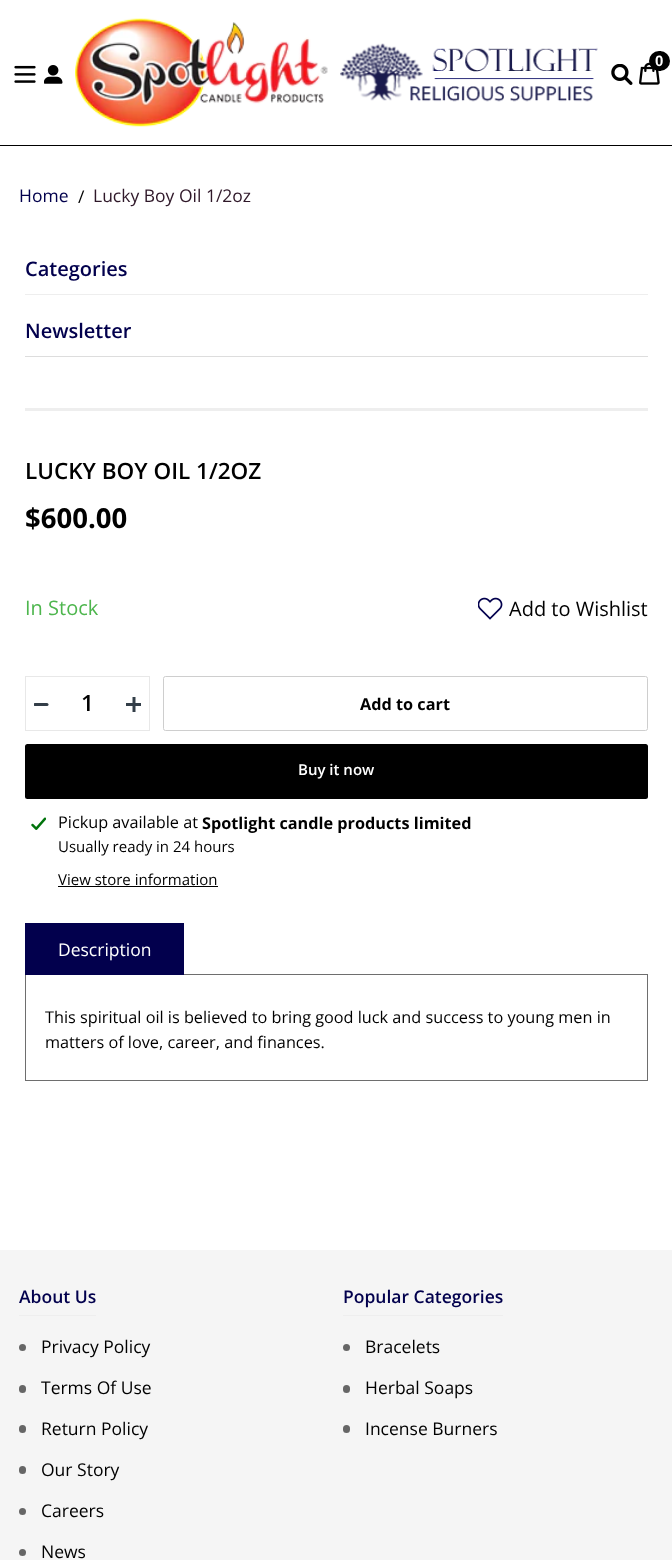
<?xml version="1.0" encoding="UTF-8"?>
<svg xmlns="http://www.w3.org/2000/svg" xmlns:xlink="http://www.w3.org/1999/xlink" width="672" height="1560">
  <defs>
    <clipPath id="clip1"><rect x="34" y="703" width="15" height="4" /></clipPath>
  </defs>
  <rect width="100%" height="100%" fill="#ffffff" />
  <rect y="145" width="672" height="1" fill="#000000" />
  <image x="75" y="18" width="253" height="109" xlink:href="image1.png" />
  <image x="340" y="43" width="258" height="59" xlink:href="image2.png" />
  <image x="639" y="62" width="21" height="23" xlink:href="image3.png" />
  <rect x="649" y="51" width="21" height="20" rx="10" fill="#000000" />
  <image x="611" y="64" width="22" height="21" xlink:href="image4.png" />
  <image x="14" y="65" width="22" height="18" xlink:href="image5.png" />
  <image x="44" y="65" width="19" height="19" xlink:href="image6.png" />
  <rect x="25" y="294" width="623" height="1" fill="#eeeeee" />
  <rect x="25" y="356" width="623" height="1" fill="#dddddd" />
  <rect x="25" y="408" width="623" height="3" fill="#eeeeee" />
  <image x="478" y="597" width="25" height="23" xlink:href="image7.png" />
  <rect x="25.5" y="676.5" width="124" height="54" fill="none" stroke="#e8e8e8" />
  <g clip-path="url(#clip1)">
    <path d="M 35 704.5 h 12" fill="none" stroke="#333e48" stroke-width="3" stroke-linecap="round" />
  </g>
  <rect x="126" y="703" width="15" height="3" fill="#333e48" />
  <path d="M 134 712 v -15" fill="none" stroke="#333e48" stroke-width="3" />
  <rect x="163.5" y="676.5" width="484" height="54" rx="2" fill="none" stroke="#cecece" />
  <rect x="25" y="744" width="623" height="55" rx="2.5" fill="#000000" />
  <image x="31" y="817" width="15" height="13" xlink:href="image8.png" />
  <rect x="58" y="886" width="160" height="1" fill="#000000" />
  <rect x="25.5" y="974.5" width="622" height="106" fill="none" stroke="#6e6e6e" />
  <rect x="25" y="923" width="159" height="52" fill="#02004d" />
  <rect y="1250" width="672" height="310" fill="#f5f5f5" />
  <rect x="19" y="1315" width="77" height="1" fill="#eeeeee" />
  <circle cx="22.5" cy="1347.5" r="3.5" fill="#666666" />
  <rect x="19" y="1385" width="7" height="8" rx="3.5" fill="#666666" />
  <rect x="19" y="1425" width="7" height="8" rx="3.5" fill="#666666" />
  <rect x="19" y="1466" width="7" height="8" rx="3.5" fill="#666666" />
  <circle cx="22.5" cy="1511.5" r="3.5" fill="#666666" />
  <circle cx="22.5" cy="1552.5" r="3.5" fill="#666666" />
  <rect x="343" y="1315" width="160" height="1" fill="#eeeeee" />
  <circle cx="346.5" cy="1347.5" r="3.5" fill="#666666" />
  <rect x="343" y="1385" width="7" height="8" rx="3.5" fill="#666666" />
  <rect x="343" y="1425" width="7" height="8" rx="3.5" fill="#666666" />
  <text x="655" y="66" style="font-family: Liberation Sans; font-size: 15px; font-weight: bold; fill: #ffffff">0</text>
  <text x="19" y="202" style="font-family: Open Sans; font-size: 17.5px; fill: #02004d">Home</text>
  <text x="78" y="203" style="font-family: Open Sans; font-size: 17.5px; fill: #000000">/</text>
  <text x="93" y="202" style="font-family: Open Sans; font-size: 17.5px; fill: #2f1829">Lucky Boy Oil 1/2oz</text>
  <text x="25" y="276" style="font-family: Open Sans; font-size: 20px; font-weight: 600; fill: #02004d">Categories</text>
  <text x="25" y="338" style="font-family: Open Sans; font-size: 20px; font-weight: 600; fill: #02004d">Newsletter</text>
  <text x="25" y="479" style="font-family: Open Sans; font-size: 22.5px; font-weight: 600; fill: #000000">LUCKY BOY OIL 1/2OZ</text>
  <text x="25" y="528" style="font-family: Open Sans; font-size: 27.5px; font-weight: bold; fill: #000000">$600.00</text>
  <text x="25" y="615" style="font-family: Open Sans; font-size: 20px; fill: #4eb64e">In Stock</text>
  <text x="509" y="616" style="font-family: Open Sans; font-size: 20px; fill: #000000">Add to Wishlist</text>
  <text x="81" y="711" style="font-family: Open Sans; font-size: 22.5px; font-weight: 600; fill: #000000">1</text>
  <text x="360" y="710" style="font-family: Open Sans; font-size: 16.25px; font-weight: bold; fill: #000000">Add to cart</text>
  <text x="298" y="775" style="font-family: Open Sans; font-size: 15px; font-weight: 600; fill: #ffffff">Buy it now</text>
  <text x="58" y="828" style="font-family: Open Sans; font-size: 16.25px; fill: #000000">Pickup available at</text>
  <text x="202" y="829" style="font-family: Open Sans; font-size: 16.25px; font-weight: bold; fill: #000000">Spotlight candle products limited</text>
  <text x="58" y="852" style="font-family: Open Sans; font-size: 15px; fill: #000000">Usually ready in 24 hours</text>
  <text x="58" y="885" style="font-family: Open Sans; font-size: 15px; fill: #000000">View store information</text>
  <text x="58" y="956" style="font-family: Open Sans; font-size: 17.5px; fill: #ffffff">Description</text>
  <text x="45" y="1023" style="font-family: Open Sans; font-size: 16.25px; fill: #000000">This spiritual oil is believed to bring good luck and success to young men in</text>
  <text x="45" y="1048" style="font-family: Open Sans; font-size: 16.25px; fill: #000000">matters of love, career, and finances.</text>
  <text x="19" y="1303" style="font-family: Open Sans; font-size: 17.5px; font-weight: 600; fill: #02004d">About Us</text>
  <text x="41" y="1353" style="font-family: Open Sans; font-size: 17.5px; fill: #000000">Privacy Policy</text>
  <text x="41" y="1394" style="font-family: Open Sans; font-size: 17.5px; fill: #000000">Terms Of Use</text>
  <text x="41" y="1435" style="font-family: Open Sans; font-size: 17.5px; fill: #000000">Return Policy</text>
  <text x="41" y="1476" style="font-family: Open Sans; font-size: 17.5px; fill: #000000">Our Story</text>
  <text x="41" y="1517" style="font-family: Open Sans; font-size: 17.5px; fill: #000000">Careers</text>
  <text x="41" y="1558" style="font-family: Open Sans; font-size: 17.5px; fill: #000000">News</text>
  <text x="343" y="1303" style="font-family: Open Sans; font-size: 17.5px; font-weight: 600; fill: #02004d">Popular Categories</text>
  <text x="365" y="1353" style="font-family: Open Sans; font-size: 17.5px; fill: #000000">Bracelets</text>
  <text x="365" y="1394" style="font-family: Open Sans; font-size: 17.5px; fill: #000000">Herbal Soaps</text>
  <text x="365" y="1435" style="font-family: Open Sans; font-size: 17.5px; fill: #000000">Incense Burners</text>
</svg>
